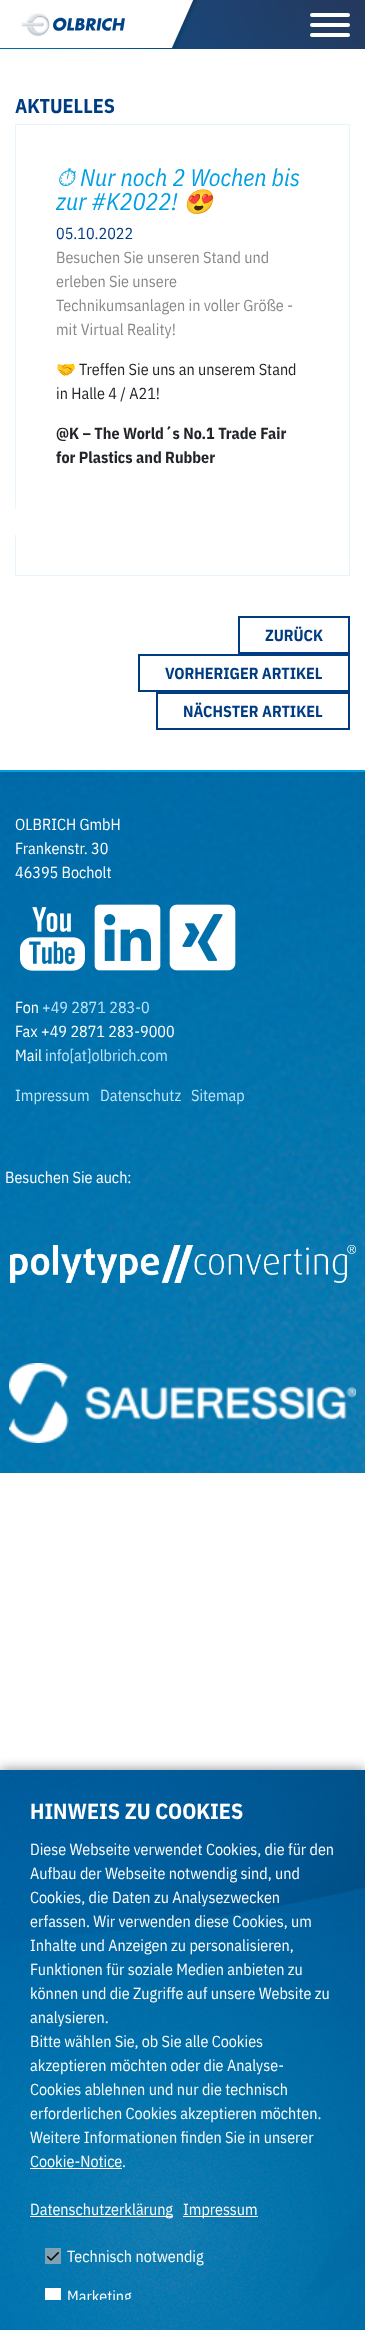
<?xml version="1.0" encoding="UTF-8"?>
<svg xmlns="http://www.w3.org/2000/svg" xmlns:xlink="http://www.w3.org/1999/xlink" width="365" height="2330">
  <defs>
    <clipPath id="clip1"><rect x="30" y="1800" width="305" height="500" /></clipPath>
  </defs>
  <rect width="100%" height="100%" fill="#ffffff" />
  <image x="0" y="0" width="365" height="49" xlink:href="image1.png" />
  <image x="0" y="0" width="197" height="48" xlink:href="image2.png" />
  <image x="21" y="13" width="104" height="24" xlink:href="image3.png" />
  <rect x="310" y="13" width="40" height="4" rx="2" fill="#ffffff" />
  <rect x="310" y="23" width="40" height="4" rx="2" fill="#ffffff" />
  <rect x="310" y="33" width="40" height="4" rx="2" fill="#ffffff" />
  <rect x="15.5" y="124.5" width="334" height="451" fill="none" stroke="#e6f5fc" />
  <rect x="15" y="509" width="1" height="26" fill="#ffffff" />
  <rect x="239" y="617" width="110" height="36" fill="none" stroke="#003c82" stroke-width="2" />
  <rect x="139" y="655" width="210" height="36" fill="none" stroke="#003c82" stroke-width="2" />
  <rect x="157" y="693" width="192" height="36" fill="none" stroke="#003c82" stroke-width="2" />
  <image x="0" y="772" width="365" height="701" xlink:href="image4.png" />
  <rect y="770" width="365" height="2" fill="#009ee3" />
  <image x="20" y="907" width="65" height="64" xlink:href="image5.png" />
  <image x="94" y="904" width="67" height="67" xlink:href="image6.png" />
  <image x="169" y="904" width="67" height="67" xlink:href="image7.png" />
  <image x="10" y="1245" width="346" height="38" xlink:href="image8.png" />
  <image x="9" y="1363" width="347" height="80" xlink:href="image9.png" />
  <rect y="1769" width="365" height="560" fill="#333333" fill-opacity="0.5" filter="blur(6px)" />
  <image x="0" y="1770" width="365" height="560" xlink:href="image10.png" />
  <rect x="30" y="2168" width="92" height="1" fill="#ffffff" />
  <rect x="30" y="2216" width="143" height="1" fill="#ffffff" />
  <rect x="183" y="2216" width="75" height="1" fill="#ffffff" />
  <rect x="45" y="2248" width="16" height="16" fill="#b4b4b4" fill-opacity="0.7" />
  <image x="47" y="2252" width="12" height="9" xlink:href="image11.png" />
  <rect x="45" y="2288" width="16" height="12" fill="#ffffff" />
  <text x="15" y="113" style="font-family: IBM Plex Sans Condensed; font-size: 20px; font-weight: bold; fill: #003c82">AKTUELLES</text>
  <text x="56" y="186" style="font-family: FreeSerif; font-size: 24px; font-style: italic; fill: #009ee3">⏱</text>
  <text x="80" y="186" style="font-family: IBM Plex Sans Condensed; font-size: 24px; font-style: italic; fill: #009ee3">Nur noch 2 Wochen bis</text>
  <text x="56" y="210" style="font-family: IBM Plex Sans Condensed; font-size: 24px; font-style: italic; fill: #009ee3">zur #K2022!</text>
  <text x="183" y="210" style="font-family: Noto Color Emoji; font-size: 24px; font-style: italic; fill: #009ee3">😍</text>
  <text x="56" y="239" style="font-family: IBM Plex Sans Condensed; font-size: 16px; fill: #003c82">05.10.2022</text>
  <text x="56" y="263" style="font-family: IBM Plex Sans Condensed; font-size: 16px; fill: #888888">Besuchen Sie unseren Stand und</text>
  <text x="56" y="287" style="font-family: IBM Plex Sans Condensed; font-size: 16px; fill: #888888">erleben Sie unsere</text>
  <text x="56" y="311" style="font-family: IBM Plex Sans Condensed; font-size: 16px; fill: #888888">Technikumsanlagen in voller Größe -</text>
  <text x="56" y="335" style="font-family: IBM Plex Sans Condensed; font-size: 16px; fill: #888888">mit Virtual Reality!</text>
  <text x="56" y="375" style="font-family: Noto Color Emoji; font-size: 16px; fill: #212529">🤝</text>
  <text x="79" y="375" style="font-family: IBM Plex Sans Condensed; font-size: 16px; fill: #212529">Treffen Sie uns an unserem Stand</text>
  <text x="56" y="399" style="font-family: IBM Plex Sans Condensed; font-size: 16px; fill: #212529">in Halle 4 / A21!</text>
  <text x="56" y="439" style="font-family: IBM Plex Sans Condensed; font-size: 16px; font-weight: bold; fill: #212529">@K – The World´s No.1 Trade Fair</text>
  <text x="56" y="463" style="font-family: IBM Plex Sans Condensed; font-size: 16px; font-weight: bold; fill: #212529">for Plastics and Rubber</text>
  <text x="265" y="641" style="font-family: IBM Plex Sans Condensed; font-size: 16px; font-weight: bold; fill: #003c82">ZURÜCK</text>
  <text x="165" y="679" style="font-family: IBM Plex Sans Condensed; font-size: 16px; font-weight: bold; fill: #003c82">VORHERIGER ARTIKEL</text>
  <text x="183" y="717" style="font-family: IBM Plex Sans Condensed; font-size: 16px; font-weight: bold; fill: #003c82">NÄCHSTER ARTIKEL</text>
  <text x="15" y="830" style="font-family: IBM Plex Sans Condensed; font-size: 16px; fill: #ffffff">OLBRICH GmbH</text>
  <text x="15" y="854" style="font-family: IBM Plex Sans Condensed; font-size: 16px; fill: #ffffff">Frankenstr. 30</text>
  <text x="15" y="878" style="font-family: IBM Plex Sans Condensed; font-size: 16px; fill: #ffffff">46395 Bocholt</text>
  <text x="15" y="1013" style="font-family: IBM Plex Sans Condensed; font-size: 16px; fill: #ffffff">Fon</text>
  <text x="42" y="1013" style="font-family: IBM Plex Sans Condensed; font-size: 16px; fill: #bee6fb">+49 2871 283-0</text>
  <text x="15" y="1037" style="font-family: IBM Plex Sans Condensed; font-size: 16px; fill: #ffffff">Fax +49 2871 283-9000</text>
  <text x="15" y="1061" style="font-family: IBM Plex Sans Condensed; font-size: 16px; fill: #ffffff">Mail</text>
  <text x="45" y="1061" style="font-family: IBM Plex Sans Condensed; font-size: 16px; fill: #bee6fb">info[at]olbrich.com</text>
  <text x="15" y="1101" style="font-family: IBM Plex Sans Condensed; font-size: 16px; fill: #bee6fb">Impressum</text>
  <text x="100" y="1101" style="font-family: IBM Plex Sans Condensed; font-size: 16px; fill: #bee6fb">Datenschutz</text>
  <text x="191" y="1101" style="font-family: IBM Plex Sans Condensed; font-size: 16px; fill: #bee6fb">Sitemap</text>
  <text x="5" y="1183" style="font-family: IBM Plex Sans Condensed; font-size: 16px; fill: #ffffff">Besuchen Sie auch:</text>
  <text x="30" y="1819" style="font-family: IBM Plex Sans Condensed; font-size: 22px; font-weight: bold; fill: #ffffff">HINWEIS ZU COOKIES</text>
  <text x="30" y="1855" style="font-family: IBM Plex Sans Condensed; font-size: 16px; fill: #ffffff">Diese Webseite verwendet Cookies, die für den</text>
  <text x="30" y="1879" style="font-family: IBM Plex Sans Condensed; font-size: 16px; fill: #ffffff">Aufbau der Webseite notwendig sind, und</text>
  <text x="30" y="1903" style="font-family: IBM Plex Sans Condensed; font-size: 16px; fill: #ffffff">Cookies, die Daten zu Analysezwecken</text>
  <text x="30" y="1927" style="font-family: IBM Plex Sans Condensed; font-size: 16px; fill: #ffffff">erfassen. Wir verwenden diese Cookies, um</text>
  <text x="30" y="1951" style="font-family: IBM Plex Sans Condensed; font-size: 16px; fill: #ffffff">Inhalte und Anzeigen zu personalisieren,</text>
  <text x="30" y="1975" style="font-family: IBM Plex Sans Condensed; font-size: 16px; fill: #ffffff">Funktionen für soziale Medien anbieten zu</text>
  <text x="30" y="1999" style="font-family: IBM Plex Sans Condensed; font-size: 16px; fill: #ffffff">können und die Zugriffe auf unsere Website zu</text>
  <text x="30" y="2023" style="font-family: IBM Plex Sans Condensed; font-size: 16px; fill: #ffffff">analysieren.</text>
  <text x="30" y="2047" style="font-family: IBM Plex Sans Condensed; font-size: 16px; fill: #ffffff">Bitte wählen Sie, ob Sie alle Cookies</text>
  <text x="30" y="2071" style="font-family: IBM Plex Sans Condensed; font-size: 16px; fill: #ffffff">akzeptieren möchten oder die Analyse-</text>
  <text x="30" y="2095" style="font-family: IBM Plex Sans Condensed; font-size: 16px; fill: #ffffff">Cookies ablehnen und nur die technisch</text>
  <text x="30" y="2119" style="font-family: IBM Plex Sans Condensed; font-size: 16px; fill: #ffffff">erforderlichen Cookies akzeptieren möchten.</text>
  <text x="30" y="2143" style="font-family: IBM Plex Sans Condensed; font-size: 16px; fill: #ffffff">Weitere Informationen finden Sie in unserer</text>
  <text x="30" y="2167" style="font-family: IBM Plex Sans Condensed; font-size: 16px; fill: #ffffff">Cookie-Notice</text>
  <text x="122" y="2167" style="font-family: IBM Plex Sans Condensed; font-size: 16px; fill: #ffffff">.</text>
  <text x="30" y="2215" style="font-family: IBM Plex Sans Condensed; font-size: 16px; fill: #ffffff">Datenschutzerklärung</text>
  <text x="183" y="2215" style="font-family: IBM Plex Sans Condensed; font-size: 16px; fill: #ffffff">Impressum</text>
  <text x="67" y="2262" style="font-family: IBM Plex Sans Condensed; font-size: 16px; fill: #ffffff">Technisch notwendig</text>
  <g clip-path="url(#clip1)">
    <text x="67" y="2302" style="font-family: IBM Plex Sans Condensed; font-size: 16px; fill: #ffffff">Marketing</text>
  </g>
</svg>
